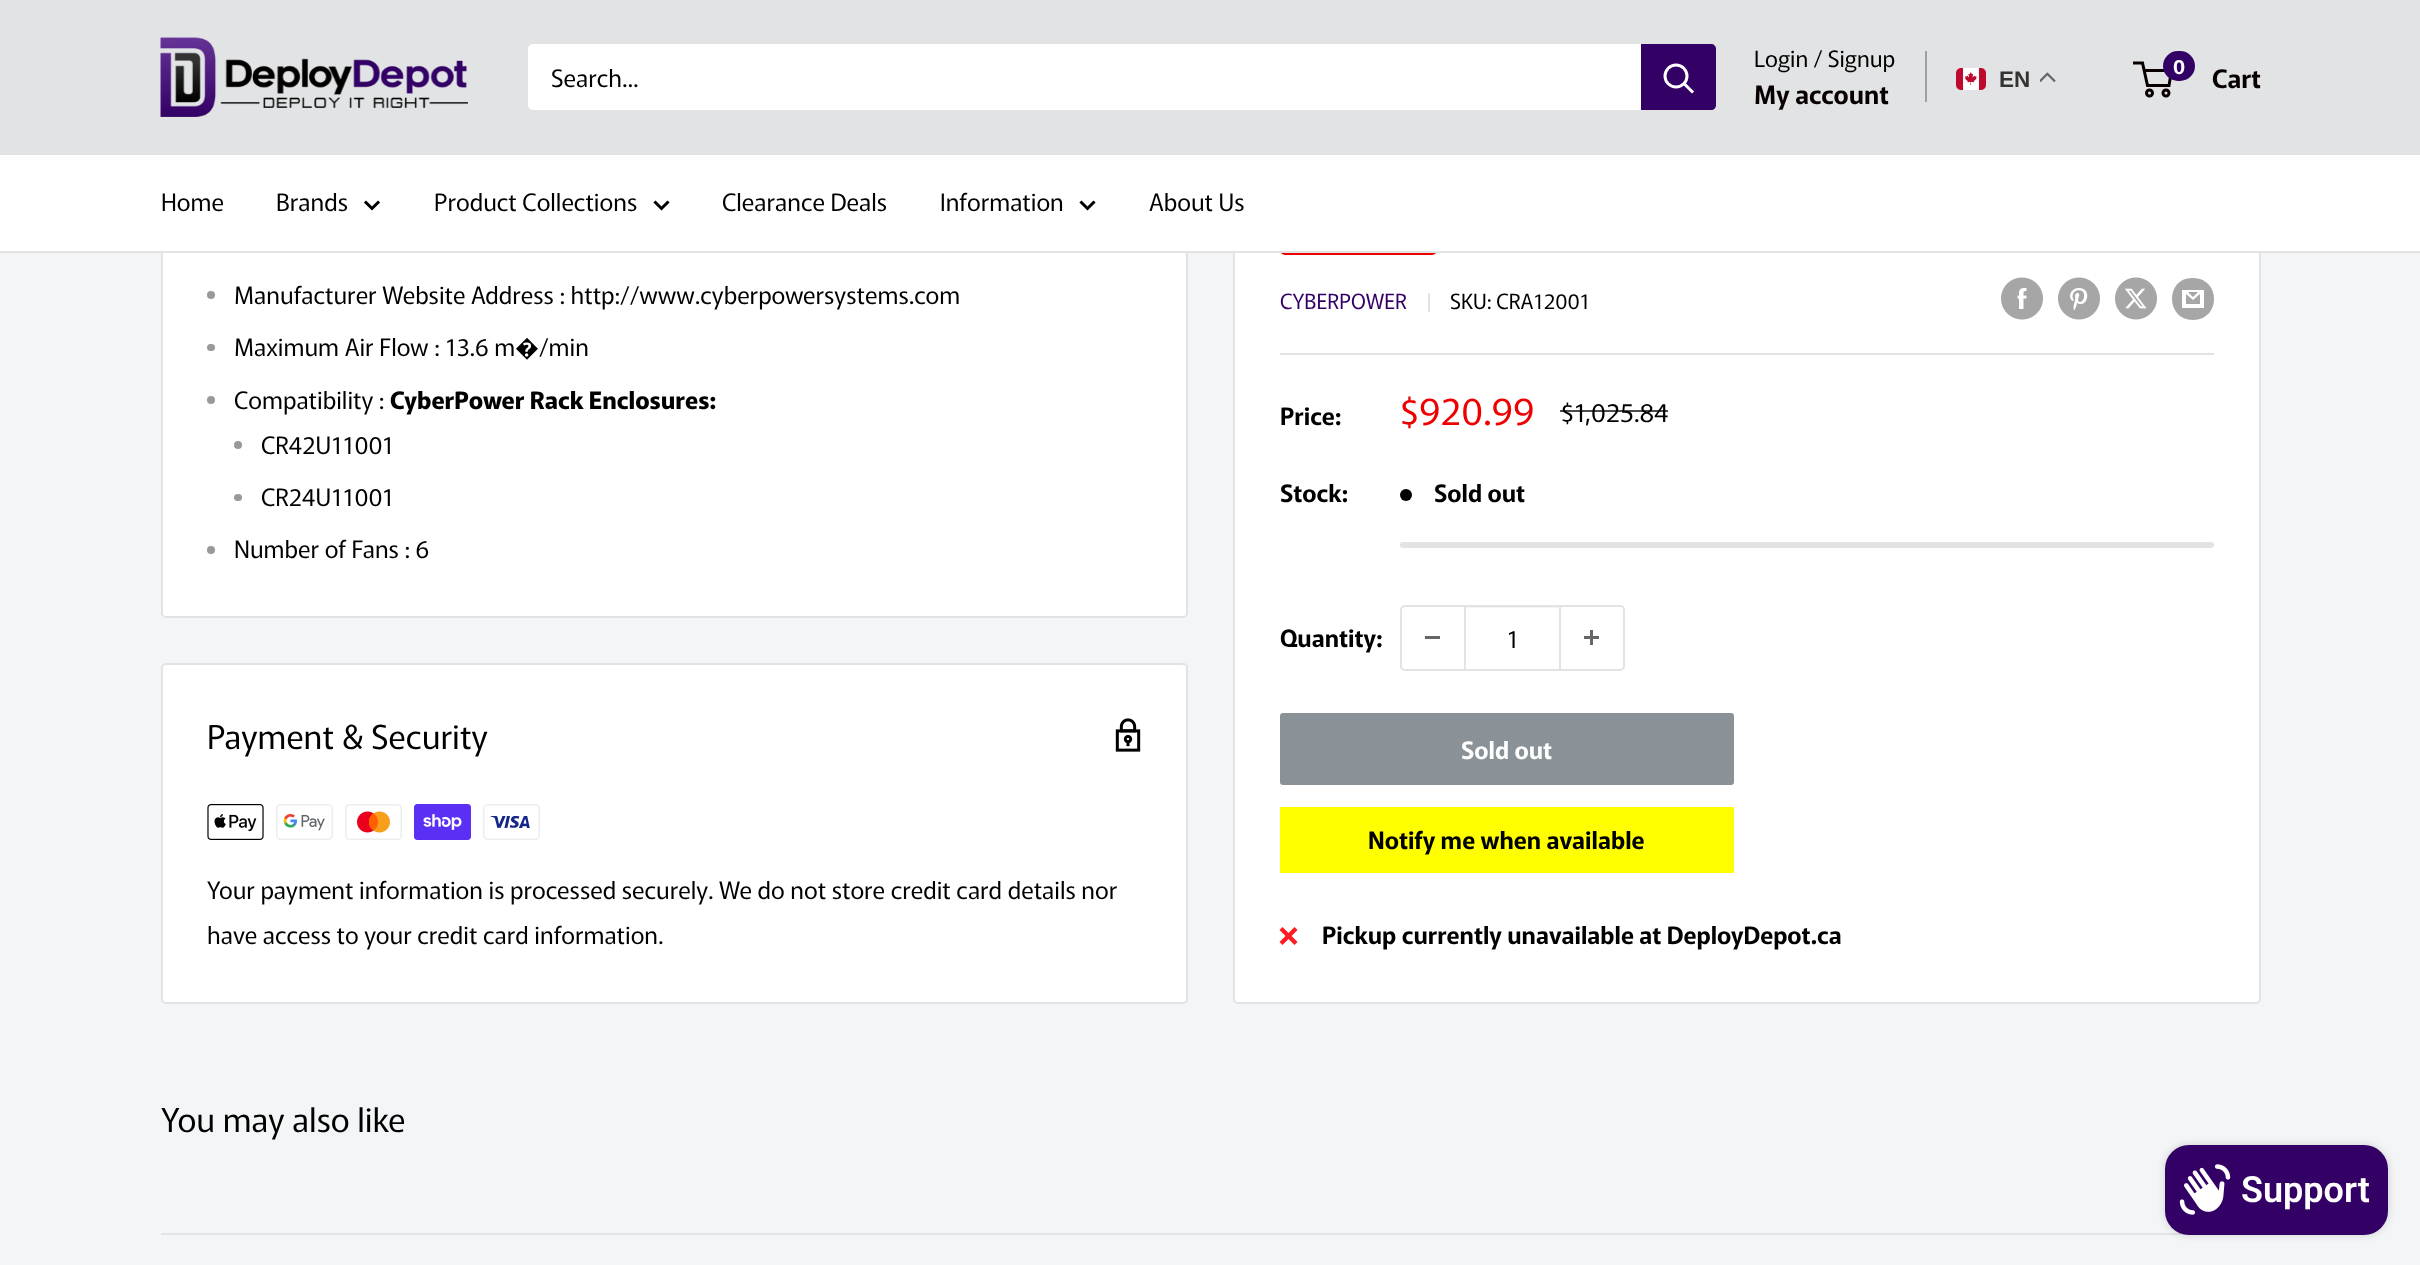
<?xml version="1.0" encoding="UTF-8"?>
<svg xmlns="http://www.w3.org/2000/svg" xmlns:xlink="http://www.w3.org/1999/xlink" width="2420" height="1265">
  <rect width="100%" height="100%" fill="#f3f5f6" />
  <rect x="162" y="-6" width="1025" height="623" rx="4" fill="#ffffff" stroke="#e1e3e4" stroke-width="2" />
  <rect x="1234" y="48" width="1026" height="955" rx="4" fill="#ffffff" stroke="#e1e3e4" stroke-width="2" />
  <rect width="2420" height="155" fill="#e1e3e4" />
  <image x="160" y="37" width="308" height="80" xlink:href="image1.png" />
  <rect x="528" y="44" width="1188" height="66" rx="5" fill="#ffffff" />
  <path d="M 1641 44 h 70 c 3 0 5 2 5 5 v 56 c 0 3 -2 5 -5 5 h -70 z" fill="#330065" />
  <path d="M 1692 91.5 l -7.5 -7.5" fill="none" stroke="#ffffff" stroke-width="3" stroke-linecap="square" />
  <circle cx="1676" cy="76" r="11" fill="none" stroke="#ffffff" stroke-width="3" />
  <rect x="1925" y="51" width="2" height="51" fill="#9e9fa0" />
  <image x="1956" y="68" width="30" height="22" xlink:href="image2.png" />
  <image x="2040" y="72" width="16" height="10" xlink:href="image3.png" />
  <circle cx="2149.5" cy="93" r="3" fill="none" stroke="#080000" stroke-width="3" />
  <circle cx="2166" cy="93" r="3" fill="none" stroke="#080000" stroke-width="3" />
  <path d="M 2144 70.5 h 27.5 l -2.5 15 h -21.5 l -5 -22.5 h -9.5" fill="none" stroke="#080000" stroke-width="3" />
  <rect x="2163" y="51" width="32" height="30" rx="15" fill="#330065" />
  <rect x="1280" y="222" width="157" height="33" rx="5" fill="#ee0000" />
  <rect y="155" width="2420" height="96" fill="#ffffff" />
  <rect y="251" width="2420" height="2" fill="#e1e3e4" />
  <path d="M 378 202.5 l -6 6 l -6 -6" fill="none" stroke="#000000" stroke-width="3" stroke-linecap="square" />
  <path d="M 667.5 202.5 l -6 6 l -6 -6" fill="none" stroke="#000000" stroke-width="3" stroke-linecap="square" />
  <path d="M 1093.5 202.5 l -6 6 l -6 -6" fill="none" stroke="#000000" stroke-width="3" stroke-linecap="square" />
  <circle cx="211" cy="295" r="4" fill="#999999" />
  <rect x="207" y="344" width="8" height="7" rx="3.5" fill="#999999" />
  <circle cx="211" cy="400" r="4" fill="#999999" />
  <circle cx="238" cy="445" r="4" fill="#999999" />
  <rect x="234" y="494" width="8" height="7" rx="3.5" fill="#999999" />
  <circle cx="211" cy="550" r="4" fill="#999999" />
  <rect x="1428" y="293" width="2" height="19" fill="#e1e3e4" />
  <image x="2001" y="277" width="42" height="43" xlink:href="image4.png" />
  <image x="2058" y="277" width="42" height="43" xlink:href="image5.png" />
  <image x="2115" y="277" width="42" height="43" xlink:href="image6.png" />
  <path d="M 2193 320 c -28 0 -28 -43 0 -42 c 28 0 28 42 0 42 z m -5 -28 h 10 l -5 5 z m 12 2 v 10 h -14 v -10 l 7 6 z m 4 -4 h -22 v 18 h 22 z" fill="#a6a6a6" />
  <rect x="1280" y="353" width="934" height="2" fill="#e1e3e4" />
  <circle cx="1406" cy="495" r="6" fill="#000000" />
  <rect x="1400" y="542" width="814" height="6" rx="3" fill="#e1e3e4" />
  <rect x="1401" y="606" width="223" height="64" rx="4" fill="none" stroke="#e1e3e4" stroke-width="2" />
  <rect x="1425" y="636" width="15" height="3" fill="#666666" />
  <rect x="1466" y="607" width="93" height="1" fill="#e1e3e4" fill-opacity="0.4" />
  <rect x="1559" y="606" width="2" height="63" fill="#e1e3e4" />
  <rect x="1464" y="606" width="2" height="63" fill="#e1e3e4" />
  <image x="1584" y="630" width="15" height="15" xlink:href="image7.png" />
  <rect x="1281" y="714" width="452" height="70" rx="2" fill="#8a9297" stroke="#8a9297" stroke-width="2" />
  <rect x="1280" y="807" width="454" height="66" fill="#ffff00" />
  <image x="1279" y="927" width="19" height="18" xlink:href="image8.png" />
  <rect x="162" y="664" width="1025" height="339" rx="4" fill="#ffffff" stroke="#e1e3e4" stroke-width="2" />
  <image x="1115" y="718" width="26" height="34" xlink:href="image9.png" />
  <image x="207" y="804" width="57" height="36" xlink:href="image10.png" />
  <image x="276" y="804" width="57" height="36" xlink:href="image11.png" />
  <image x="345" y="804" width="57" height="36" xlink:href="image12.png" />
  <image x="414" y="804" width="57" height="36" xlink:href="image13.png" />
  <image x="483" y="804" width="57" height="36" xlink:href="image14.png" />
  <rect x="161" y="1233" width="2028" height="2" fill="#e1e3e4" />
  <rect x="2165" y="1145" width="223" height="90" rx="24" fill="#000000" fill-opacity="0.15" filter="blur(4px)" />
  <rect x="2165" y="1145" width="223" height="90" rx="24" fill="#330065" />
  <image x="2179" y="1164" width="52" height="51" xlink:href="image15.png" />
  <text x="551" y="87" style="font-family: Murecho; font-size: 24px; fill: #000000">Search...</text>
  <text x="1754" y="67" style="font-family: Murecho; font-size: 22.5px; fill: #000000">Login / Signup</text>
  <text x="1754" y="104" style="font-family: Murecho; font-size: 25.5px; font-weight: 600; fill: #080000">My account</text>
  <text x="1999" y="87" style="font-family: Liberation Sans; font-size: 22.5px; font-weight: bold; fill: #333333">EN</text>
  <text x="2173" y="74" style="font-family: Murecho; font-size: 20px; font-weight: 600; fill: #ffffff">0</text>
  <text x="2212" y="88" style="font-family: Murecho; font-size: 25.5px; font-weight: 600; fill: #080000">Cart</text>
  <text x="161" y="211" style="font-family: Murecho; font-size: 24px; fill: #000000">Home</text>
  <text x="276" y="211" style="font-family: Murecho; font-size: 24px; fill: #000000">Brands</text>
  <text x="434" y="211" style="font-family: Murecho; font-size: 24px; fill: #000000">Product Collections</text>
  <text x="722" y="211" style="font-family: Murecho; font-size: 24px; fill: #000000">Clearance Deals</text>
  <text x="940" y="211" style="font-family: Murecho; font-size: 24px; fill: #000000">Information</text>
  <text x="1149" y="211" style="font-family: Murecho; font-size: 24px; fill: #000000">About Us</text>
  <text x="234" y="304" style="font-family: Murecho; font-size: 24px; fill: #000000">Manufacturer Website Address : http://www.cyberpowersystems.com</text>
  <text x="234" y="356" style="font-family: Murecho; font-size: 24px; fill: #000000">Maximum Air Flow : 13.6 m</text>
  <text x="515" y="356" style="font-family: Noto Sans; font-size: 24px; fill: #000000">�</text>
  <text x="539" y="356" style="font-family: Murecho; font-size: 24px; fill: #000000">/min</text>
  <text x="234" y="409" style="font-family: Murecho; font-size: 24px; fill: #000000">Compatibility :</text>
  <text x="390" y="409" style="font-family: Murecho; font-size: 24px; font-weight: bold; fill: #000000">CyberPower Rack Enclosures:</text>
  <text x="261" y="454" style="font-family: Murecho; font-size: 24px; fill: #000000">CR42U11001</text>
  <text x="261" y="506" style="font-family: Murecho; font-size: 24px; fill: #000000">CR24U11001</text>
  <text x="234" y="558" style="font-family: Murecho; font-size: 24px; fill: #000000">Number of Fans : 6</text>
  <text x="1280" y="309" style="font-family: Murecho; font-size: 21px; fill: #330065">CYBERPOWER</text>
  <text x="1450" y="309" style="font-family: Murecho; font-size: 21px; fill: #000000">SKU: CRA12001</text>
  <text x="1280" y="425" style="font-family: Murecho; font-size: 24px; font-weight: 600; fill: #000000">Price:</text>
  <text x="1400" y="425" style="font-family: Murecho; font-size: 37.5px; fill: #ee0000">$920.99</text>
  <text x="1561" y="422" style="font-family: Murecho; font-size: 25.5px; fill: #000000">$1,025.84</text>
  <rect x="1560" y="410" width="108" height="2" fill="#000000" fill-opacity="0.7" />
  <text x="1280" y="502" style="font-family: Murecho; font-size: 24px; font-weight: 600; fill: #000000">Stock:</text>
  <text x="1434" y="502" style="font-family: Murecho; font-size: 24px; font-weight: 600; fill: #000000">Sold out</text>
  <text x="1280" y="647" style="font-family: Murecho; font-size: 24px; font-weight: 600; fill: #000000">Quantity:</text>
  <text x="1507" y="648" style="font-family: Murecho; font-size: 24px; fill: #000000">1</text>
  <text x="1461" y="759" style="font-family: Murecho; font-size: 24px; font-weight: 600; fill: #ffffff">Sold out</text>
  <text x="1368" y="849" style="font-family: Murecho; font-size: 24px; font-weight: 600; fill: #000000">Notify me when available</text>
  <text x="1322" y="944" style="font-family: Murecho; font-size: 24px; font-weight: 600; fill: #000000">Pickup currently unavailable at DeployDepot.ca</text>
  <text x="207" y="749" style="font-family: Murecho; font-size: 33px; fill: #000000">Payment &amp; Security</text>
  <text x="207" y="899" style="font-family: Murecho; font-size: 24px; fill: #000000">Your payment information is processed securely. We do not store credit card details nor</text>
  <text x="207" y="944" style="font-family: Murecho; font-size: 24px; fill: #000000">have access to your credit card information.</text>
  <text x="161" y="1132" style="font-family: Murecho; font-size: 33px; fill: #000000">You may also like</text>
  <text x="2241" y="1202" style="font-family: Roboto; font-size: 36px; font-weight: 600; fill: #ffffff">Support</text>
</svg>
